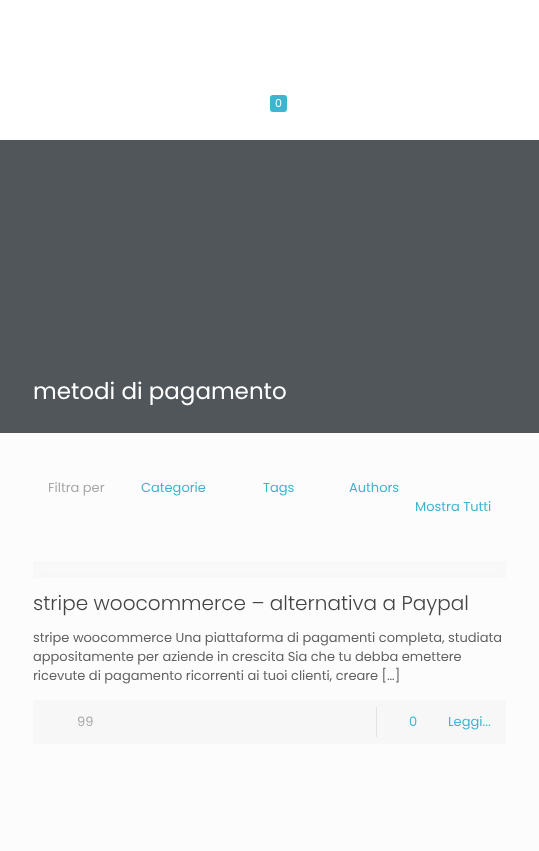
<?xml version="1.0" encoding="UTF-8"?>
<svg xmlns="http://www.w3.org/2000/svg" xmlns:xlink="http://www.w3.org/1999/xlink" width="539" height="851">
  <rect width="100%" height="100%" fill="#fcfcfc" />
  <rect y="140" width="539" height="293" fill="#51565a" />
  <rect width="539" height="140" fill="#ffffff" />
  <rect x="270" y="95" width="17" height="17" rx="3" fill="#3cb5d0" />
  <rect x="37" y="565" width="465" height="9" fill="none" stroke="#f8f8f8" stroke-width="8" />
  <rect x="33" y="700" width="473" height="44" fill="#f7f7f7" />
  <rect x="376" y="707" width="1" height="30" fill="#e3e3e3" />
  <text x="275" y="107" style="font-family: Poppins; font-size: 11px; fill: #ffffff">0</text>
  <text x="33" y="399" style="font-family: Poppins; font-size: 23px; fill: #ffffff">metodi di pagamento</text>
  <text x="48" y="492" style="font-family: Poppins; font-size: 13px; fill: #a8a8a8">Filtra per</text>
  <text x="141" y="492" style="font-family: Poppins; font-size: 13px; fill: #3cb5d0">Categorie</text>
  <text x="263" y="492" style="font-family: Poppins; font-size: 13px; fill: #3cb5d0">Tags</text>
  <text x="349" y="492" style="font-family: Poppins; font-size: 13px; fill: #3cb5d0">Authors</text>
  <text x="415" y="511" style="font-family: Poppins; font-size: 13px; fill: #3cb5d0">Mostra Tutti</text>
  <text x="33" y="610" style="font-family: Poppins; font-size: 20px; font-weight: 300; fill: #444444">stripe woocommerce – alternativa a Paypal</text>
  <text x="33" y="642" style="font-family: Poppins; font-size: 13px; fill: #626262">stripe woocommerce Una piattaforma di pagamenti completa, studiata</text>
  <text x="33" y="661" style="font-family: Poppins; font-size: 13px; fill: #626262">appositamente per aziende in crescita Sia che tu debba emettere</text>
  <text x="33" y="680" style="font-family: Poppins; font-size: 13px; fill: #626262">ricevute di pagamento ricorrenti ai tuoi clienti, creare […]</text>
  <text x="77" y="726" style="font-family: Poppins; font-size: 13px; fill: #a8a8a8">99</text>
  <text x="409" y="726" style="font-family: Poppins; font-size: 13px; fill: #3cb5d0">0</text>
  <text x="448" y="726" style="font-family: Poppins; font-size: 13px; fill: #3cb5d0">Leggi...</text>
</svg>
